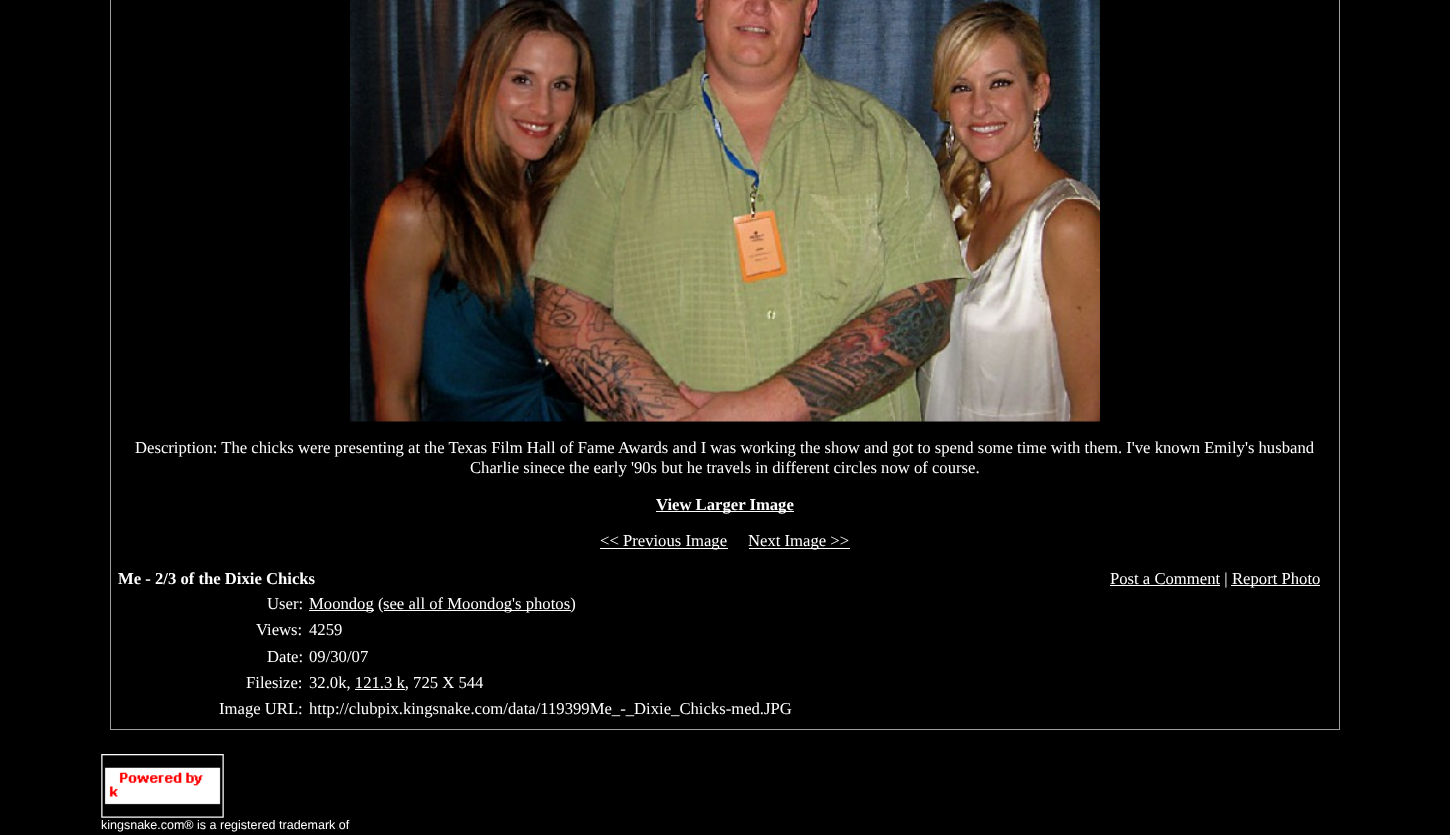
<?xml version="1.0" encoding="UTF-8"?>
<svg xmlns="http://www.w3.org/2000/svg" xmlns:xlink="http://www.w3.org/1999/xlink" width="1450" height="835">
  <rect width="100%" height="100%" fill="#000000" />
  <rect x="110" width="1230" height="730" fill="#9e9e9e" />
  <rect x="111" width="1228" height="729" fill="#000000" />
  <image x="350" y="0" width="750" height="422" xlink:href="image1.png" />
  <rect x="656" y="511" width="138" height="1" fill="#ffffff" />
  <rect x="600" y="548" width="128" height="1" fill="#ffffff" />
  <rect x="749" y="548" width="101" height="1" fill="#ffffff" />
  <rect x="1110" y="585" width="110" height="1" fill="#ffffff" />
  <rect x="1231" y="585" width="89" height="1" fill="#ffffff" />
  <rect x="309" y="610" width="65" height="1" fill="#ffffff" />
  <rect x="384" y="610" width="187" height="1" fill="#ffffff" />
  <rect x="355" y="689" width="50" height="1" fill="#ffffff" />
  <image x="101" y="754" width="123" height="64" xlink:href="image2.png" />
  <text x="135" y="453" style="font-family: Liberation Serif; font-size: 16.67px; fill: #ffffff">Description: The chicks were presenting at the Texas Film Hall of Fame Awards and I was working the show and got to spend some time with them. I've known Emily's husband</text>
  <text x="470" y="473" style="font-family: Liberation Serif; font-size: 16.67px; fill: #ffffff">Charlie sinece the early '90s but he travels in different circles now of course.</text>
  <text x="656" y="510" style="font-family: Liberation Serif; font-size: 16.67px; font-weight: bold; fill: #ffffff">View Larger Image</text>
  <text x="600" y="546" style="font-family: Liberation Serif; font-size: 16.67px; fill: #ffffff">&lt;&lt; Previous Image</text>
  <text x="748" y="546" style="font-family: Liberation Serif; font-size: 16.67px; fill: #ffffff">Next Image &gt;&gt;</text>
  <text x="118" y="584" style="font-family: Liberation Serif; font-size: 16.67px; font-weight: bold; fill: #ffffff">Me - 2/3 of the Dixie Chicks</text>
  <text x="1110" y="584" style="font-family: Liberation Serif; font-size: 16.67px; fill: #ffffff">Post a Comment |</text>
  <text x="1232" y="584" style="font-family: Liberation Serif; font-size: 16.67px; fill: #ffffff">Report Photo</text>
  <text x="267" y="609" style="font-family: Liberation Serif; font-size: 16.67px; fill: #ffffff">User:</text>
  <text x="309" y="609" style="font-family: Liberation Serif; font-size: 16.67px; fill: #ffffff">Moondog (</text>
  <text x="383" y="609" style="font-family: Liberation Serif; font-size: 16.67px; fill: #ffffff">see all of Moondog's photos)</text>
  <text x="256" y="635" style="font-family: Liberation Serif; font-size: 16.67px; fill: #ffffff">Views:</text>
  <text x="309" y="635" style="font-family: Liberation Serif; font-size: 16.67px; fill: #ffffff">4259</text>
  <text x="267" y="662" style="font-family: Liberation Serif; font-size: 16.67px; fill: #ffffff">Date:</text>
  <text x="309" y="662" style="font-family: Liberation Serif; font-size: 16.67px; fill: #ffffff">09/30/07</text>
  <text x="246" y="688" style="font-family: Liberation Serif; font-size: 16.67px; fill: #ffffff">Filesize:</text>
  <text x="309" y="688" style="font-family: Liberation Serif; font-size: 16.67px; fill: #ffffff">32.0k, 121.3 k, 725 X 544</text>
  <text x="219" y="714" style="font-family: Liberation Serif; font-size: 16.67px; fill: #ffffff">Image URL:</text>
  <text x="309" y="714" style="font-family: Liberation Serif; font-size: 16.67px; fill: #ffffff">http://clubpix.kingsnake.com/data/119399Me_-_Dixie_Chicks-med.JPG</text>
  <text x="101" y="829" style="font-family: Liberation Sans; font-size: 12.5px; fill: #ffffff">kingsnake.com® is a registered trademark of</text>
</svg>
